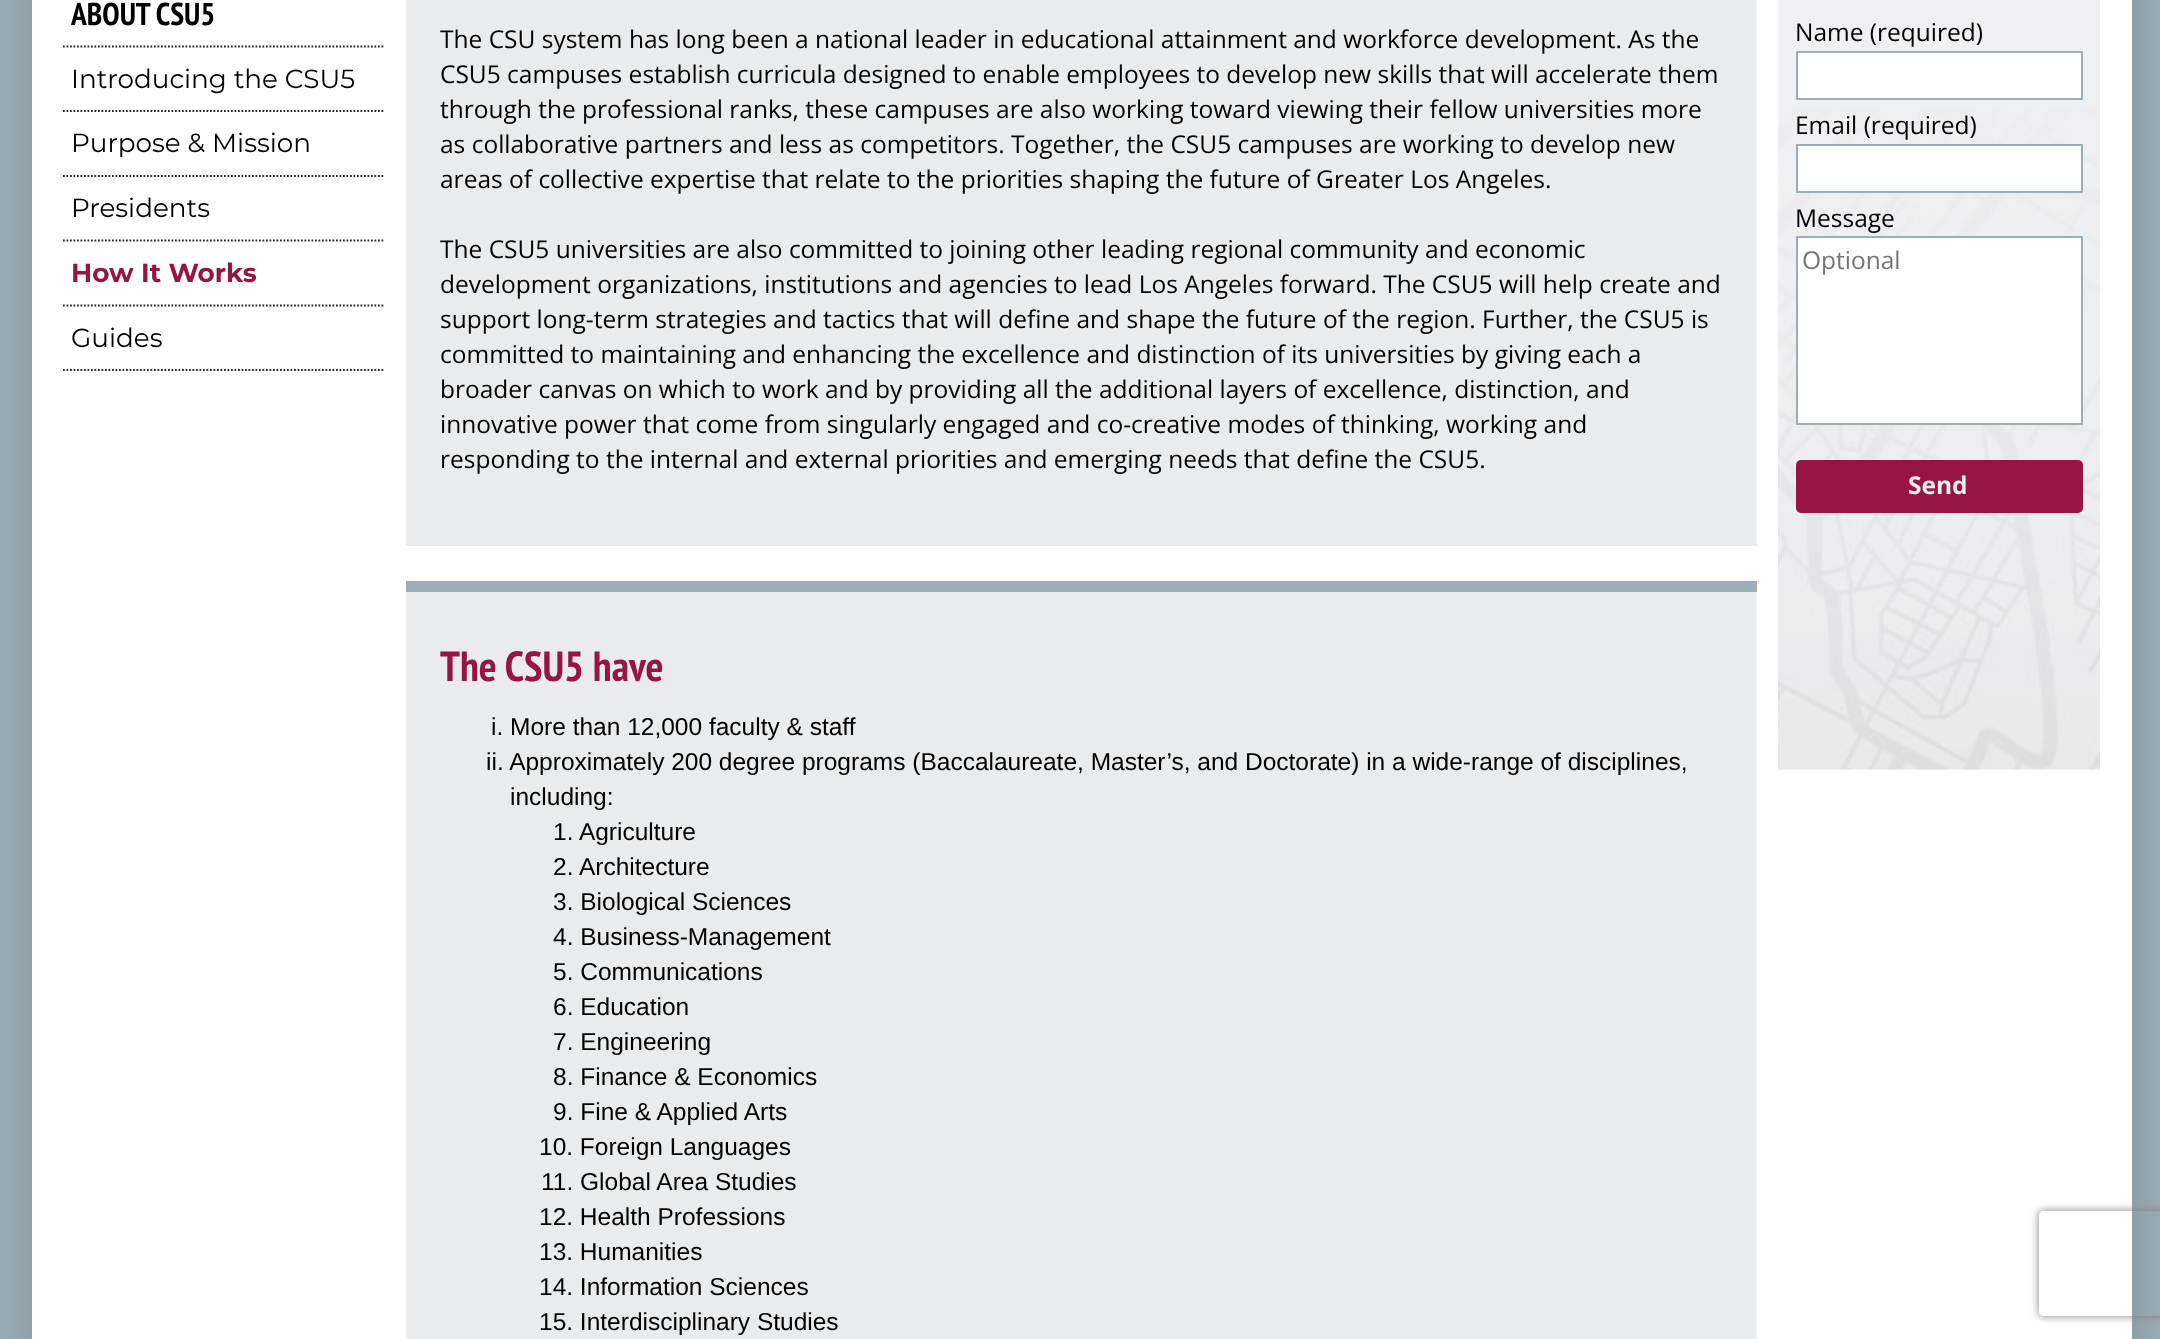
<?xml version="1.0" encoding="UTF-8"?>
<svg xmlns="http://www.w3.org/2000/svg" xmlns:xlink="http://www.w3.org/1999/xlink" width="2160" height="1339">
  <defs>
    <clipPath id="clip1"><path d="M 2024 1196 h 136 v 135 h -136 z m 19 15 h 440 c 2 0 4 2 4 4 v 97 c 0 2 -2 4 -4 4 h -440 c -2 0 -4 -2 -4 -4 v -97 c 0 -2 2 -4 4 -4 z" clip-rule="evenodd" /></clipPath>
  </defs>
  <rect width="100%" height="100%" fill="#9cadb7" />
  <rect x="32" y="-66" width="2100" height="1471" fill="#000000" fill-opacity="0.16" filter="blur(22px)" />
  <rect x="32" width="2100" height="1339" fill="#ffffff" />
  <path d="M 63 46.5 h 322" fill="none" stroke="#262626" stroke-width="1.8" stroke-dasharray="1.75 1.75" />
  <path d="M 63 111 h 322" fill="none" stroke="#262626" stroke-width="1.8" stroke-dasharray="1.75 1.75" />
  <path d="M 63 176 h 322" fill="none" stroke="#262626" stroke-width="1.8" stroke-dasharray="1.75 1.75" />
  <path d="M 63 240.5 h 322" fill="none" stroke="#262626" stroke-width="1.8" stroke-dasharray="1.75 1.75" />
  <path d="M 63 305.5 h 322" fill="none" stroke="#262626" stroke-width="1.8" stroke-dasharray="1.75 1.75" />
  <path d="M 63 370 h 322" fill="none" stroke="#262626" stroke-width="1.8" stroke-dasharray="1.75 1.75" />
  <rect x="406" width="1351" height="546" fill="#eaebec" />
  <rect x="406" y="592" width="1351" height="747" fill="#eaebec" />
  <rect x="406" y="581" width="1351" height="11" fill="#9cadb7" />
  <rect x="1778" width="322" height="770" fill="#f0f0f2" />
  <image x="1778" y="108" width="322" height="662" xlink:href="image1.png" />
  <rect x="1797" y="52" width="285" height="47" fill="#ffffff" stroke="#9cadb7" stroke-width="2" />
  <rect x="1797" y="145" width="285" height="47" fill="#ffffff" stroke="#9cadb7" stroke-width="2" />
  <rect x="1797" y="237" width="285" height="187" fill="#ffffff" stroke="#9cadb7" stroke-width="2" />
  <rect x="1796" y="460" width="287" height="53" rx="5" fill="#961544" />
  <g clip-path="url(#clip1)">
    <rect x="2039" y="1211" width="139" height="105" rx="4" fill="#808080" filter="blur(4.5px)" />
  </g>
  <text x="71" y="25" style="font-family: PT Sans Narrow; font-size: 31.5px; font-weight: bold; fill: #000000">ABOUT CSU5</text>
  <text x="71" y="88" style="font-family: Montserrat; font-size: 26.25px; fill: #000000">Introducing the CSU5</text>
  <text x="71" y="152" style="font-family: Montserrat; font-size: 26.25px; fill: #000000">Purpose &amp; Mission</text>
  <text x="71" y="217" style="font-family: Montserrat; font-size: 26.25px; fill: #000000">Presidents</text>
  <text x="71" y="282" style="font-family: Montserrat; font-size: 26.25px; font-weight: bold; fill: #961544">How It Works</text>
  <text x="71" y="347" style="font-family: Montserrat; font-size: 26.25px; fill: #000000">Guides</text>
  <text x="440" y="48" style="font-family: Open Sans; font-size: 24.5px; fill: #000000">The CSU system has long been a national leader in educational attainment and workforce development. As the</text>
  <text x="440" y="83" style="font-family: Open Sans; font-size: 24.5px; fill: #000000">CSU5 campuses establish curricula designed to enable employees to develop new skills that will accelerate them</text>
  <text x="440" y="118" style="font-family: Open Sans; font-size: 24.5px; fill: #000000">through the professional ranks, these campuses are also working toward viewing their fellow universities more</text>
  <text x="440" y="153" style="font-family: Open Sans; font-size: 24.5px; fill: #000000">as collaborative partners and less as competitors. Together, the CSU5 campuses are working to develop new</text>
  <text x="440" y="188" style="font-family: Open Sans; font-size: 24.5px; fill: #000000">areas of collective expertise that relate to the priorities shaping the future of Greater Los Angeles.</text>
  <text x="440" y="258" style="font-family: Open Sans; font-size: 24.5px; fill: #000000">The CSU5 universities are also committed to joining other leading regional community and economic</text>
  <text x="440" y="293" style="font-family: Open Sans; font-size: 24.5px; fill: #000000">development organizations, institutions and agencies to lead Los Angeles forward. The CSU5 will help create and</text>
  <text x="440" y="328" style="font-family: Open Sans; font-size: 24.5px; fill: #000000">support long-term strategies and tactics that will define and shape the future of the region. Further, the CSU5 is</text>
  <text x="440" y="363" style="font-family: Open Sans; font-size: 24.5px; fill: #000000">committed to maintaining and enhancing the excellence and distinction of its universities by giving each a</text>
  <text x="440" y="398" style="font-family: Open Sans; font-size: 24.5px; fill: #000000">broader canvas on which to work and by providing all the additional layers of excellence, distinction, and</text>
  <text x="440" y="433" style="font-family: Open Sans; font-size: 24.5px; fill: #000000">innovative power that come from singularly engaged and co-creative modes of thinking, working and</text>
  <text x="440" y="468" style="font-family: Open Sans; font-size: 24.5px; fill: #000000">responding to the internal and external priorities and emerging needs that define the CSU5.</text>
  <text x="440" y="681" style="font-family: PT Sans Narrow; font-size: 42px; font-weight: bold; fill: #961544">The CSU5 have</text>
  <text x="491" y="735" style="font-family: Liberation Sans; font-size: 24.5px; fill: #000000">i. More than 12,000 faculty &amp; staff</text>
  <text x="486" y="770" style="font-family: Liberation Sans; font-size: 24.5px; fill: #000000">ii. Approximately 200 degree programs (Baccalaureate, Master’s, and Doctorate) in a wide-range of disciplines,</text>
  <text x="510" y="805" style="font-family: Liberation Sans; font-size: 24.5px; fill: #000000">including:</text>
  <text x="553" y="840" style="font-family: Liberation Sans; font-size: 24.5px; fill: #000000">1. Agriculture</text>
  <text x="553" y="875" style="font-family: Liberation Sans; font-size: 24.5px; fill: #000000">2. Architecture</text>
  <text x="553" y="910" style="font-family: Liberation Sans; font-size: 24.5px; fill: #000000">3. Biological Sciences</text>
  <text x="553" y="945" style="font-family: Liberation Sans; font-size: 24.5px; fill: #000000">4. Business-Management</text>
  <text x="553" y="980" style="font-family: Liberation Sans; font-size: 24.5px; fill: #000000">5. Communications</text>
  <text x="553" y="1015" style="font-family: Liberation Sans; font-size: 24.5px; fill: #000000">6. Education</text>
  <text x="553" y="1050" style="font-family: Liberation Sans; font-size: 24.5px; fill: #000000">7. Engineering</text>
  <text x="553" y="1085" style="font-family: Liberation Sans; font-size: 24.5px; fill: #000000">8. Finance &amp; Economics</text>
  <text x="553" y="1120" style="font-family: Liberation Sans; font-size: 24.5px; fill: #000000">9. Fine &amp; Applied Arts</text>
  <text x="539" y="1155" style="font-family: Liberation Sans; font-size: 24.5px; fill: #000000">10. Foreign Languages</text>
  <text x="541" y="1190" style="font-family: Liberation Sans; font-size: 24.5px; fill: #000000">11. Global Area Studies</text>
  <text x="539" y="1225" style="font-family: Liberation Sans; font-size: 24.5px; fill: #000000">12. Health Professions</text>
  <text x="539" y="1260" style="font-family: Liberation Sans; font-size: 24.5px; fill: #000000">13. Humanities</text>
  <text x="539" y="1295" style="font-family: Liberation Sans; font-size: 24.5px; fill: #000000">14. Information Sciences</text>
  <text x="539" y="1330" style="font-family: Liberation Sans; font-size: 24.5px; fill: #000000">15. Interdisciplinary Studies</text>
  <text x="1795" y="41" style="font-family: Open Sans; font-size: 24.5px; fill: #000000">Name (required)</text>
  <text x="1795" y="134" style="font-family: Open Sans; font-size: 24.5px; fill: #000000">Email (required)</text>
  <text x="1795" y="227" style="font-family: Open Sans; font-size: 24.5px; fill: #000000">Message</text>
  <text x="1802" y="269" style="font-family: Open Sans; font-size: 24.5px; fill: #757575">Optional</text>
  <text x="1908" y="494" style="font-family: Open Sans; font-size: 24.5px; font-weight: bold; fill: #ececec">Send</text>
</svg>
